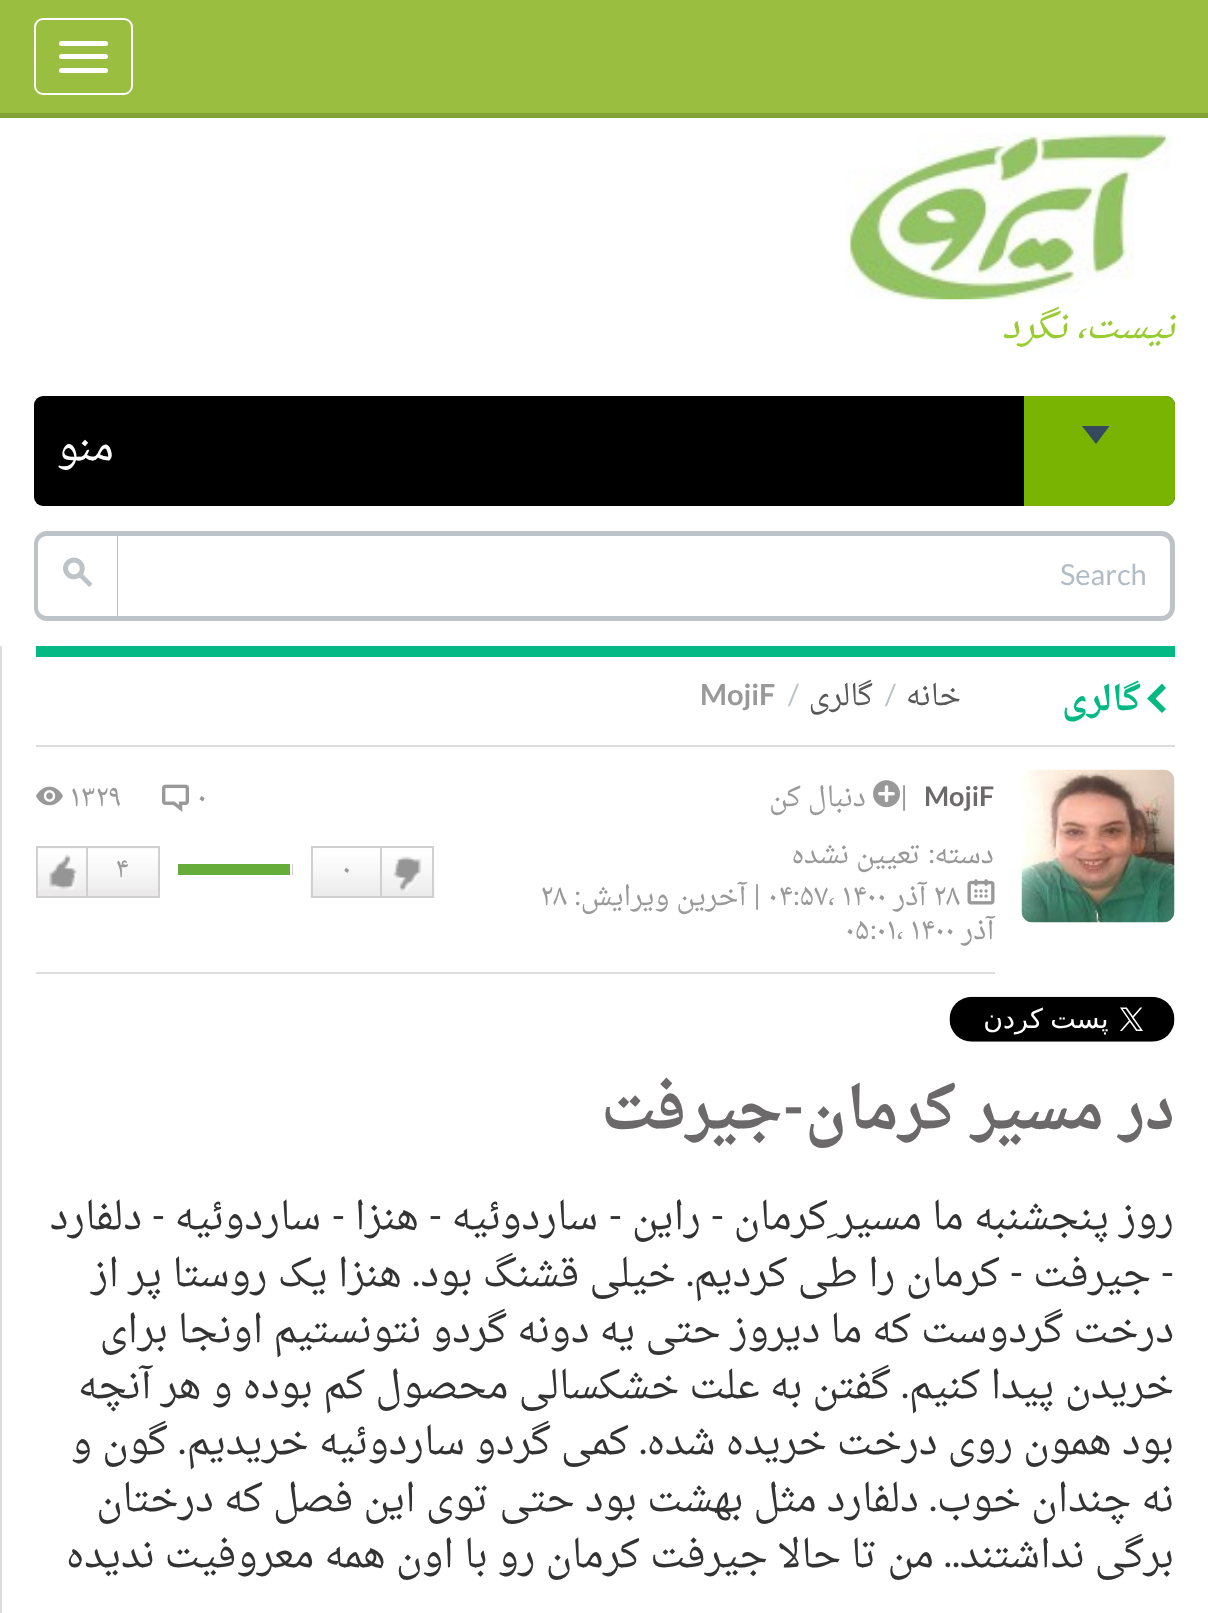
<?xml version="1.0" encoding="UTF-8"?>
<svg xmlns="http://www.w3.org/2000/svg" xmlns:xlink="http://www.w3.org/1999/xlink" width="1208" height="1613">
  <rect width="100%" height="100%" fill="#ffffff" />
  <rect width="1208" height="113" fill="#99be40" />
  <rect y="113" width="1208" height="5" fill="#82a236" />
  <rect x="35" y="19" width="97" height="75" rx="8" fill="none" stroke="#ffffff" stroke-width="2" />
  <rect x="59" y="41" width="49" height="5" rx="2.5" fill="#ffffff" />
  <rect x="59" y="54" width="49" height="5" rx="2.5" fill="#ffffff" />
  <rect x="59" y="68" width="49" height="5" rx="2.5" fill="#ffffff" />
  <image x="846" y="132" width="325" height="168" xlink:href="image1.png" />
  <rect x="34" y="396" width="1141" height="110" rx="9" fill="#000000" />
  <path d="M 1024 396 h 142 c 5 0 9 4 9 9 v 92 c 0 5 -4 9 -9 9 h -142 z" fill="#79b402" />
  <path d="M 1082 426 h 27.5 l -13.5 18 z" fill="#34495e" />
  <path d="M 115.5 533.5 h 1045.5 c 6.5 0 11.5 5 11.5 11.5 v 62 c 0 6.5 -5 11.5 -11.5 11.5 h -1045.5 z" fill="none" stroke="#bdc3c7" stroke-width="5" />
  <path d="M 47 536 h 70 v 81 h -70 c -5 0 -9 -4 -9 -9 v -63 c 0 -5 4 -9 9 -9 z" fill="#ffffff" />
  <path d="M 47 531 h 70 v 90 h -70 c -7 0 -13 -6 -13 -13 v -64 c 0 -7 6 -13 13 -13 z m 0 5 h 70 v 80 h -70 c -5 0 -9 -4 -9 -8 v -64 c 0 -4 4 -8 9 -8 z" fill="#bdc3c7" fill-rule="evenodd" />
  <image x="63" y="557" width="30" height="30" xlink:href="image2.png" />
  <rect y="646" width="2" height="967" fill="#dddddd" />
  <rect x="36" y="646" width="1139" height="11" fill="#04b984" />
  <rect x="36" y="745" width="1139" height="2" fill="#dddddd" />
  <path d="M 1147 698.5 l 15 14.5 l 4 -4 l -10.5 -10.5 l 10.5 -10.5 l -4 -4.5 z" fill="#04b984" />
  <image x="1021" y="769" width="154" height="154" xlink:href="image3.png" />
  <image x="949" y="996" width="226" height="46" xlink:href="image4.png" />
  <rect x="36" y="972" width="959" height="2" fill="#dddddd" />
  <image x="873" y="780" width="27" height="28" xlink:href="image5.png" />
  <image x="967" y="879" width="28" height="26" xlink:href="image6.png" />
  <image x="162" y="784" width="27" height="28" xlink:href="image7.png" />
  <image x="36" y="786" width="27" height="20" xlink:href="image8.png" />
  <image x="310" y="848" width="125" height="50" xlink:href="image9.png" />
  <rect x="312" y="847" width="121" height="50" fill="none" stroke="#d0d0d0" stroke-width="2" />
  <image x="393" y="856" width="29" height="36" xlink:href="image10.png" />
  <rect x="380" y="848" width="2" height="50" fill="#d0d0d0" />
  <rect x="292" y="864" width="1" height="11" fill="#d0d0d0" />
  <rect x="178" y="864" width="112" height="11" fill="#66ac3b" />
  <rect x="38" y="848" width="120" height="48" fill="#ebe9e9" />
  <image x="38" y="848" width="120" height="42" xlink:href="image11.png" />
  <rect x="37" y="847" width="122" height="50" fill="none" stroke="#d0d0d0" stroke-width="2" />
  <image x="49" y="854" width="28" height="37" xlink:href="image12.png" />
  <rect x="86" y="848" width="2" height="50" fill="#d0d0d0" />
  <text x="1175" y="338" style="font-family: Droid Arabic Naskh; font-size: 36px; font-style: italic; direction: rtl; fill: #99cc33">نیست، نگرد</text>
  <text x="114" y="460" style="font-family: Droid Arabic Naskh; font-size: 40px; direction: rtl; fill: #ffffff">منو</text>
  <text x="1060" y="585" style="font-family: Lato; font-size: 29px; fill: #b2bcc5">Search</text>
  <text x="1141" y="710" style="font-family: Droid Arabic Naskh; font-size: 34px; font-weight: bold; direction: rtl; fill: #04b984">گالری</text>
  <text x="961" y="705" style="font-family: Droid Arabic Naskh; font-size: 29px; direction: rtl; fill: #585858">خانه</text>
  <text x="885" y="705" style="font-family: Lato; font-size: 29px; fill: #bdc3c7">/</text>
  <text x="873" y="705" style="font-family: Droid Arabic Naskh; font-size: 29px; direction: rtl; fill: #585858">گالری</text>
  <text x="788" y="705" style="font-family: Lato; font-size: 29px; fill: #bdc3c7">/</text>
  <text x="700" y="705" style="font-family: Lato; font-size: 29px; font-weight: bold; fill: #999999">MojiF</text>
  <text x="924" y="806" style="font-family: Lato; font-size: 27px; font-weight: bold; fill: #6b6969">MojiF</text>
  <text x="900" y="806" style="font-family: Lato; font-size: 27px; fill: #999999">|</text>
  <text x="866" y="806" style="font-family: Droid Arabic Naskh; font-size: 27px; direction: rtl; fill: #999999">دنبال کن</text>
  <text x="994" y="863" style="font-family: Droid Arabic Naskh; font-size: 27px; direction: rtl; fill: #999999">دسته</text>
  <text x="935" y="863" style="font-family: Lato; font-size: 27px; direction: rtl; fill: #999999">:</text>
  <text x="921" y="863" style="font-family: Droid Arabic Naskh; font-size: 27px; direction: rtl; fill: #999999">تعیین نشده</text>
  <text x="933" y="905" style="font-family: Droid Arabic Naskh; font-size: 27px; fill: #999999">۲۸</text>
  <text x="926" y="905" style="font-family: Droid Arabic Naskh; font-size: 27px; direction: rtl; fill: #999999">آذر</text>
  <text x="768" y="905" style="font-family: Droid Arabic Naskh; font-size: 27px; fill: #999999">۰۴ ۵۷، ۱۴۰۰</text>
  <text x="761" y="905" style="font-family: Lato; font-size: 27px; direction: rtl; fill: #999999">|</text>
  <text x="746" y="905" style="font-family: Droid Arabic Naskh; font-size: 27px; direction: rtl; fill: #999999">آخرین ویرایش</text>
  <text x="581" y="905" style="font-family: Lato; font-size: 27px; direction: rtl; fill: #999999">:</text>
  <text x="540" y="905" style="font-family: Droid Arabic Naskh; font-size: 27px; fill: #999999">۲۸</text>
  <text x="793" y="905" style="font-family: Lato; font-size: 27px; fill: #999999">:</text>
  <text x="994" y="939" style="font-family: Droid Arabic Naskh; font-size: 27px; direction: rtl; fill: #999999">آذر</text>
  <text x="845" y="939" style="font-family: Droid Arabic Naskh; font-size: 27px; fill: #999999">۰۵ ۰۱، ۱۴۰۰</text>
  <text x="870" y="939" style="font-family: Lato; font-size: 27px; fill: #999999">:</text>
  <text x="197" y="806" style="font-family: Droid Arabic Naskh; font-size: 27px; fill: #999999">۰</text>
  <text x="70" y="806" style="font-family: Droid Arabic Naskh; font-size: 27px; fill: #999999">۱۳۲۹</text>
  <text x="342" y="877" style="font-family: Droid Arabic Naskh; font-size: 25px; fill: #999999">۰</text>
  <text x="115" y="877" style="font-family: Droid Arabic Naskh; font-size: 25px; fill: #999999">۴</text>
  <text x="1175" y="1128" style="font-family: Droid Arabic Naskh; font-size: 58.5px; font-weight: bold; direction: rtl; fill: #6b6969">در مسیر کرمان</text>
  <text x="804" y="1128" style="font-family: Lato; font-size: 58.5px; font-weight: bold; direction: rtl; fill: #6b6969">-</text>
  <text x="783" y="1128" style="font-family: Droid Arabic Naskh; font-size: 58.5px; font-weight: bold; direction: rtl; fill: #6b6969">جیرفت</text>
  <text x="1174" y="1229" style="font-family: Droid Arabic Naskh; font-size: 38.25px; direction: rtl; fill: #333333">روز پنجشنبه ما مسیر ِکرمان</text>
  <text x="724" y="1229" style="font-family: Lato; font-size: 38.25px; direction: rtl; fill: #333333">-</text>
  <text x="701" y="1229" style="font-family: Droid Arabic Naskh; font-size: 38.25px; direction: rtl; fill: #333333">راین</text>
  <text x="622" y="1229" style="font-family: Lato; font-size: 38.25px; direction: rtl; fill: #333333">-</text>
  <text x="598" y="1229" style="font-family: Droid Arabic Naskh; font-size: 38.25px; direction: rtl; fill: #333333">ساردوئیه</text>
  <text x="442" y="1229" style="font-family: Lato; font-size: 38.25px; direction: rtl; fill: #333333">-</text>
  <text x="419" y="1229" style="font-family: Droid Arabic Naskh; font-size: 38.25px; direction: rtl; fill: #333333">هنزا</text>
  <text x="345" y="1229" style="font-family: Lato; font-size: 38.25px; direction: rtl; fill: #333333">-</text>
  <text x="321" y="1229" style="font-family: Droid Arabic Naskh; font-size: 38.25px; direction: rtl; fill: #333333">ساردوئیه</text>
  <text x="165" y="1229" style="font-family: Lato; font-size: 38.25px; direction: rtl; fill: #333333">-</text>
  <text x="142" y="1229" style="font-family: Droid Arabic Naskh; font-size: 38.25px; direction: rtl; fill: #333333">دلفارد</text>
  <text x="1174" y="1286" style="font-family: Lato; font-size: 38.25px; direction: rtl; fill: #333333">-</text>
  <text x="1151" y="1286" style="font-family: Droid Arabic Naskh; font-size: 38.25px; direction: rtl; fill: #333333">جیرفت</text>
  <text x="1023" y="1286" style="font-family: Lato; font-size: 38.25px; direction: rtl; fill: #333333">-</text>
  <text x="1000" y="1286" style="font-family: Droid Arabic Naskh; font-size: 38.25px; direction: rtl; fill: #333333">کرمان را طی کردیم</text>
  <text x="676" y="1286" style="font-family: Droid Arabic Naskh; font-size: 38.25px; direction: rtl; fill: #333333">خیلی قشنگ بود</text>
  <text x="402" y="1286" style="font-family: Droid Arabic Naskh; font-size: 38.25px; direction: rtl; fill: #333333">هنزا یک روستا پر از</text>
  <text x="694" y="1286" style="font-family: Lato; font-size: 38.25px; direction: rtl; fill: #333333">.</text>
  <text x="420" y="1286" style="font-family: Lato; font-size: 38.25px; direction: rtl; fill: #333333">.</text>
  <text x="1174" y="1342" style="font-family: Droid Arabic Naskh; font-size: 38.25px; direction: rtl; fill: #333333">درخت گردوست که ما دیروز حتی یه دونه گردو نتونستیم اونجا برای</text>
  <text x="1174" y="1398" style="font-family: Droid Arabic Naskh; font-size: 38.25px; direction: rtl; fill: #333333">خریدن پیدا کنیم</text>
  <text x="909" y="1398" style="font-family: Lato; font-size: 38.25px; direction: rtl; fill: #333333">.</text>
  <text x="891" y="1398" style="font-family: Droid Arabic Naskh; font-size: 38.25px; direction: rtl; fill: #333333">گفتن به علت خشکسالی محصول کم بوده و هر آنچه</text>
  <text x="1174" y="1454" style="font-family: Droid Arabic Naskh; font-size: 38.25px; direction: rtl; fill: #333333">بود همون روی درخت خریده شده</text>
  <text x="647" y="1454" style="font-family: Lato; font-size: 38.25px; direction: rtl; fill: #333333">.</text>
  <text x="629" y="1454" style="font-family: Droid Arabic Naskh; font-size: 38.25px; direction: rtl; fill: #333333">کمی گردو ساردوئیه خریدیم</text>
  <text x="186" y="1454" style="font-family: Lato; font-size: 38.25px; direction: rtl; fill: #333333">.</text>
  <text x="168" y="1454" style="font-family: Droid Arabic Naskh; font-size: 38.25px; direction: rtl; fill: #333333">گون و</text>
  <text x="1174" y="1511" style="font-family: Droid Arabic Naskh; font-size: 38.25px; direction: rtl; fill: #333333">نه چندان خوب</text>
  <text x="937" y="1511" style="font-family: Lato; font-size: 38.25px; direction: rtl; fill: #333333">.</text>
  <text x="919" y="1511" style="font-family: Droid Arabic Naskh; font-size: 38.25px; direction: rtl; fill: #333333">دلفارد مثل بهشت بود حتی توی این فصل که درختان</text>
  <text x="1174" y="1567" style="font-family: Droid Arabic Naskh; font-size: 38.25px; direction: rtl; fill: #333333">برگی نداشتند</text>
  <text x="960" y="1567" style="font-family: Lato; font-size: 38.25px; direction: rtl; fill: #333333">..</text>
  <text x="934" y="1567" style="font-family: Droid Arabic Naskh; font-size: 38.25px; direction: rtl; fill: #333333">من تا حالا جیرفت کرمان رو با اون همه معروفیت ندیده</text>
</svg>
